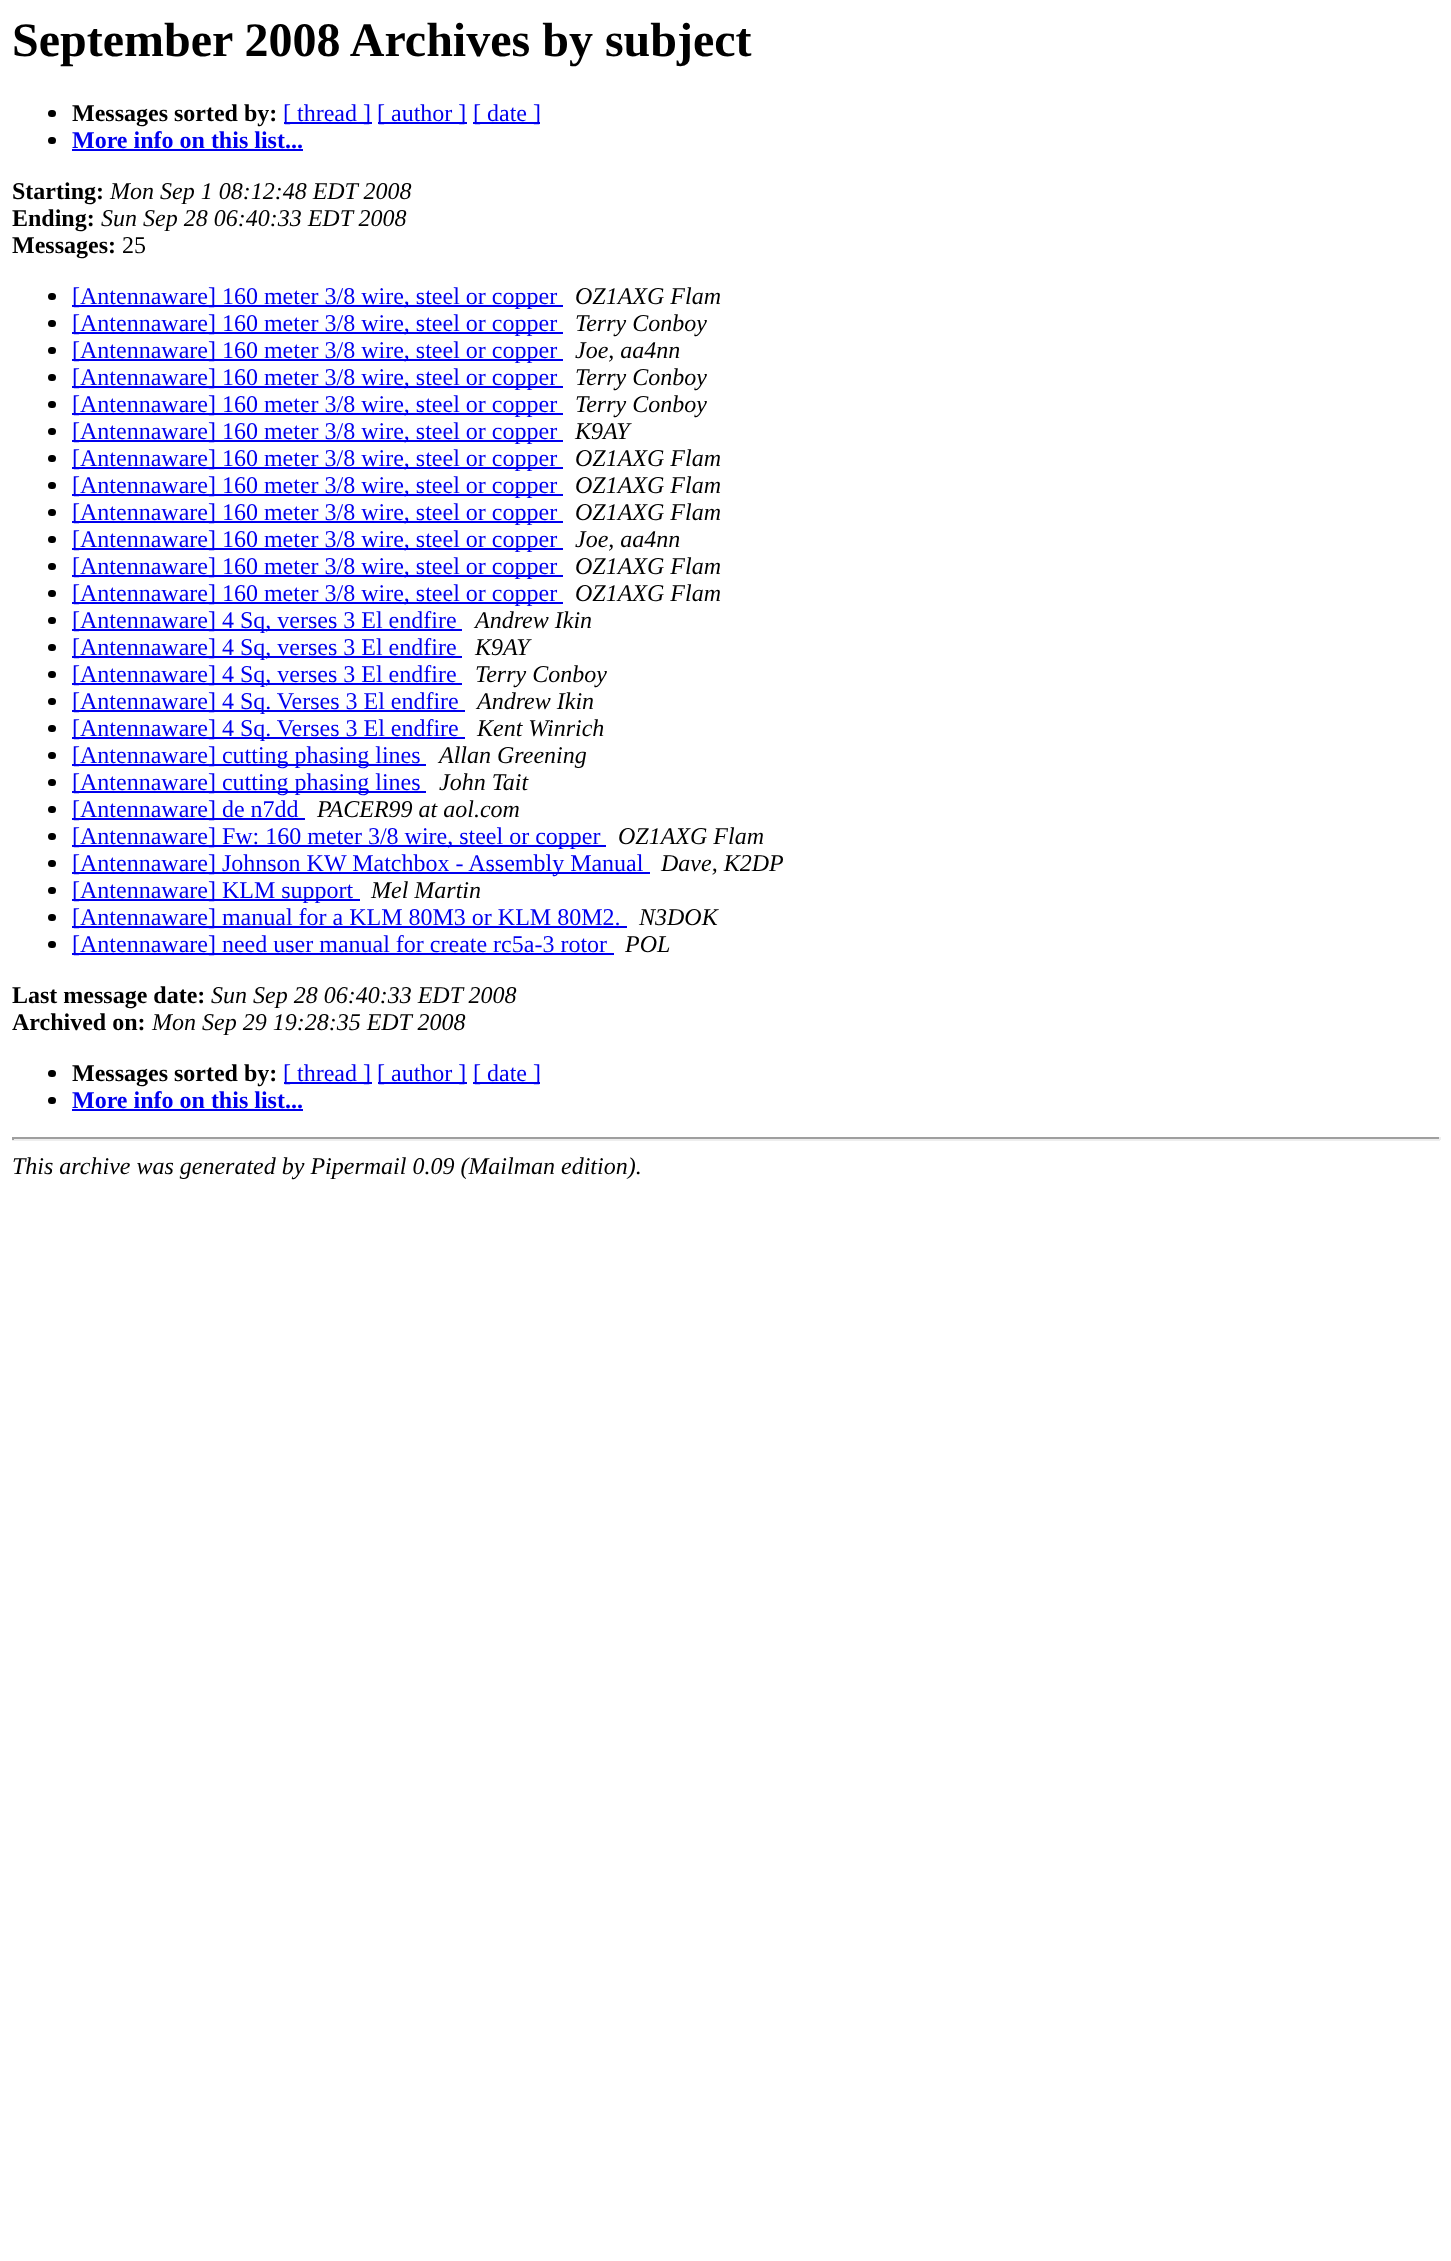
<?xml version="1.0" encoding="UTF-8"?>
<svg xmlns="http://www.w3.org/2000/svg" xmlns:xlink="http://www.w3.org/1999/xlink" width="1451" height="2261">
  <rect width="100%" height="100%" fill="#ffffff" />
  <rect x="48" y="110" width="8" height="7" rx="3.5" fill="#000000" />
  <rect x="284" y="122" width="88" height="2" fill="#0000ee" />
  <rect x="378" y="122" width="89" height="2" fill="#0000ee" />
  <rect x="473" y="122" width="67" height="2" fill="#0000ee" />
  <rect x="48" y="137" width="8" height="7" rx="3.5" fill="#000000" />
  <rect x="72" y="149" width="231" height="2" fill="#0000ee" />
  <rect x="48" y="293" width="8" height="7" rx="3.5" fill="#000000" />
  <rect x="72" y="305" width="491" height="2" fill="#0000ee" />
  <rect x="48" y="320" width="8" height="7" rx="3.5" fill="#000000" />
  <rect x="72" y="332" width="491" height="2" fill="#0000ee" />
  <rect x="48" y="347" width="8" height="7" rx="3.5" fill="#000000" />
  <rect x="72" y="359" width="491" height="2" fill="#0000ee" />
  <rect x="48" y="374" width="8" height="7" rx="3.5" fill="#000000" />
  <rect x="72" y="386" width="491" height="2" fill="#0000ee" />
  <rect x="48" y="401" width="8" height="7" rx="3.5" fill="#000000" />
  <rect x="72" y="413" width="491" height="2" fill="#0000ee" />
  <rect x="48" y="428" width="8" height="7" rx="3.5" fill="#000000" />
  <rect x="72" y="440" width="491" height="2" fill="#0000ee" />
  <rect x="48" y="455" width="8" height="7" rx="3.5" fill="#000000" />
  <rect x="72" y="467" width="491" height="2" fill="#0000ee" />
  <rect x="48" y="482" width="8" height="7" rx="3.5" fill="#000000" />
  <rect x="72" y="494" width="491" height="2" fill="#0000ee" />
  <rect x="48" y="509" width="8" height="7" rx="3.5" fill="#000000" />
  <rect x="72" y="521" width="491" height="2" fill="#0000ee" />
  <rect x="48" y="536" width="8" height="7" rx="3.5" fill="#000000" />
  <rect x="72" y="548" width="491" height="2" fill="#0000ee" />
  <rect x="48" y="563" width="8" height="7" rx="3.5" fill="#000000" />
  <rect x="72" y="575" width="491" height="2" fill="#0000ee" />
  <rect x="48" y="590" width="8" height="7" rx="3.5" fill="#000000" />
  <rect x="72" y="602" width="491" height="2" fill="#0000ee" />
  <rect x="48" y="617" width="8" height="7" rx="3.5" fill="#000000" />
  <rect x="72" y="629" width="390" height="2" fill="#0000ee" />
  <rect x="48" y="644" width="8" height="7" rx="3.5" fill="#000000" />
  <rect x="72" y="656" width="390" height="2" fill="#0000ee" />
  <rect x="48" y="671" width="8" height="7" rx="3.5" fill="#000000" />
  <rect x="72" y="683" width="390" height="2" fill="#0000ee" />
  <rect x="48" y="698" width="8" height="7" rx="3.5" fill="#000000" />
  <rect x="72" y="710" width="393" height="2" fill="#0000ee" />
  <rect x="48" y="725" width="8" height="7" rx="3.5" fill="#000000" />
  <rect x="72" y="737" width="393" height="2" fill="#0000ee" />
  <rect x="48" y="752" width="8" height="7" rx="3.5" fill="#000000" />
  <rect x="72" y="764" width="354" height="2" fill="#0000ee" />
  <rect x="48" y="779" width="8" height="7" rx="3.5" fill="#000000" />
  <rect x="72" y="791" width="354" height="2" fill="#0000ee" />
  <rect x="48" y="806" width="8" height="7" rx="3.5" fill="#000000" />
  <rect x="72" y="818" width="233" height="2" fill="#0000ee" />
  <rect x="48" y="833" width="8" height="7" rx="3.5" fill="#000000" />
  <rect x="72" y="845" width="534" height="2" fill="#0000ee" />
  <rect x="48" y="860" width="8" height="7" rx="3.5" fill="#000000" />
  <rect x="72" y="872" width="578" height="2" fill="#0000ee" />
  <rect x="48" y="887" width="8" height="7" rx="3.5" fill="#000000" />
  <rect x="72" y="899" width="288" height="2" fill="#0000ee" />
  <rect x="48" y="914" width="8" height="7" rx="3.5" fill="#000000" />
  <rect x="72" y="926" width="555" height="2" fill="#0000ee" />
  <rect x="48" y="941" width="8" height="7" rx="3.5" fill="#000000" />
  <rect x="72" y="953" width="542" height="2" fill="#0000ee" />
  <rect x="48" y="1070" width="8" height="7" rx="3.5" fill="#000000" />
  <rect x="284" y="1082" width="88" height="2" fill="#0000ee" />
  <rect x="378" y="1082" width="89" height="2" fill="#0000ee" />
  <rect x="473" y="1082" width="67" height="2" fill="#0000ee" />
  <rect x="48" y="1097" width="8" height="7" rx="3.5" fill="#000000" />
  <rect x="72" y="1109" width="231" height="2" fill="#0000ee" />
  <rect x="12" y="1137" width="1428" height="2" fill="#9f9f9f" />
  <rect x="1439" y="1137" width="2" height="3" fill="#eeeeee" />
  <rect x="12" y="1139" width="1428" height="2" fill="#eeeeee" />
  <rect x="12" y="1137" width="2" height="3" fill="#9f9f9f" />
  <text x="12" y="56" style="font-family: Liberation Serif; font-size: 48px; font-weight: bold; fill: #000000">September 2008 Archives by subject</text>
  <text x="72" y="121" style="font-family: Liberation Serif; font-size: 24px; font-weight: bold; fill: #000000">Messages sorted by:</text>
  <text x="283" y="121" style="font-family: Liberation Serif; font-size: 24px; fill: #0000ee">[ thread ]</text>
  <text x="377" y="121" style="font-family: Liberation Serif; font-size: 24px; fill: #0000ee">[ author ]</text>
  <text x="473" y="121" style="font-family: Liberation Serif; font-size: 24px; fill: #0000ee">[ date ]</text>
  <text x="72" y="148" style="font-family: Liberation Serif; font-size: 24px; font-weight: bold; fill: #0000ee">More info on this list...</text>
  <text x="12" y="199" style="font-family: Liberation Serif; font-size: 24px; font-weight: bold; fill: #000000">Starting:</text>
  <text x="110" y="199" style="font-family: Liberation Serif; font-size: 24px; font-style: italic; fill: #000000">Mon Sep 1 08:12:48 EDT 2008</text>
  <text x="12" y="226" style="font-family: Liberation Serif; font-size: 24px; font-weight: bold; fill: #000000">Ending:</text>
  <text x="101" y="226" style="font-family: Liberation Serif; font-size: 24px; font-style: italic; fill: #000000">Sun Sep 28 06:40:33 EDT 2008</text>
  <text x="12" y="253" style="font-family: Liberation Serif; font-size: 24px; font-weight: bold; fill: #000000">Messages:</text>
  <text x="122" y="253" style="font-family: Liberation Serif; font-size: 24px; fill: #000000">25</text>
  <text x="72" y="304" style="font-family: Liberation Serif; font-size: 24px; fill: #0000ee">[Antennaware] 160 meter 3/8 wire, steel or copper</text>
  <text x="575" y="304" style="font-family: Liberation Serif; font-size: 24px; font-style: italic; fill: #000000">OZ1AXG Flam</text>
  <text x="72" y="331" style="font-family: Liberation Serif; font-size: 24px; fill: #0000ee">[Antennaware] 160 meter 3/8 wire, steel or copper</text>
  <text x="575" y="331" style="font-family: Liberation Serif; font-size: 24px; font-style: italic; fill: #000000">Terry Conboy</text>
  <text x="72" y="358" style="font-family: Liberation Serif; font-size: 24px; fill: #0000ee">[Antennaware] 160 meter 3/8 wire, steel or copper</text>
  <text x="575" y="358" style="font-family: Liberation Serif; font-size: 24px; font-style: italic; fill: #000000">Joe, aa4nn</text>
  <text x="72" y="385" style="font-family: Liberation Serif; font-size: 24px; fill: #0000ee">[Antennaware] 160 meter 3/8 wire, steel or copper</text>
  <text x="575" y="385" style="font-family: Liberation Serif; font-size: 24px; font-style: italic; fill: #000000">Terry Conboy</text>
  <text x="72" y="412" style="font-family: Liberation Serif; font-size: 24px; fill: #0000ee">[Antennaware] 160 meter 3/8 wire, steel or copper</text>
  <text x="575" y="412" style="font-family: Liberation Serif; font-size: 24px; font-style: italic; fill: #000000">Terry Conboy</text>
  <text x="72" y="439" style="font-family: Liberation Serif; font-size: 24px; fill: #0000ee">[Antennaware] 160 meter 3/8 wire, steel or copper</text>
  <text x="575" y="439" style="font-family: Liberation Serif; font-size: 24px; font-style: italic; fill: #000000">K9AY</text>
  <text x="72" y="466" style="font-family: Liberation Serif; font-size: 24px; fill: #0000ee">[Antennaware] 160 meter 3/8 wire, steel or copper</text>
  <text x="575" y="466" style="font-family: Liberation Serif; font-size: 24px; font-style: italic; fill: #000000">OZ1AXG Flam</text>
  <text x="72" y="493" style="font-family: Liberation Serif; font-size: 24px; fill: #0000ee">[Antennaware] 160 meter 3/8 wire, steel or copper</text>
  <text x="575" y="493" style="font-family: Liberation Serif; font-size: 24px; font-style: italic; fill: #000000">OZ1AXG Flam</text>
  <text x="72" y="520" style="font-family: Liberation Serif; font-size: 24px; fill: #0000ee">[Antennaware] 160 meter 3/8 wire, steel or copper</text>
  <text x="575" y="520" style="font-family: Liberation Serif; font-size: 24px; font-style: italic; fill: #000000">OZ1AXG Flam</text>
  <text x="72" y="547" style="font-family: Liberation Serif; font-size: 24px; fill: #0000ee">[Antennaware] 160 meter 3/8 wire, steel or copper</text>
  <text x="575" y="547" style="font-family: Liberation Serif; font-size: 24px; font-style: italic; fill: #000000">Joe, aa4nn</text>
  <text x="72" y="574" style="font-family: Liberation Serif; font-size: 24px; fill: #0000ee">[Antennaware] 160 meter 3/8 wire, steel or copper</text>
  <text x="575" y="574" style="font-family: Liberation Serif; font-size: 24px; font-style: italic; fill: #000000">OZ1AXG Flam</text>
  <text x="72" y="601" style="font-family: Liberation Serif; font-size: 24px; fill: #0000ee">[Antennaware] 160 meter 3/8 wire, steel or copper</text>
  <text x="575" y="601" style="font-family: Liberation Serif; font-size: 24px; font-style: italic; fill: #000000">OZ1AXG Flam</text>
  <text x="72" y="628" style="font-family: Liberation Serif; font-size: 24px; fill: #0000ee">[Antennaware] 4 Sq, verses 3 El endfire</text>
  <text x="475" y="628" style="font-family: Liberation Serif; font-size: 24px; font-style: italic; fill: #000000">Andrew Ikin</text>
  <text x="72" y="655" style="font-family: Liberation Serif; font-size: 24px; fill: #0000ee">[Antennaware] 4 Sq, verses 3 El endfire</text>
  <text x="475" y="655" style="font-family: Liberation Serif; font-size: 24px; font-style: italic; fill: #000000">K9AY</text>
  <text x="72" y="682" style="font-family: Liberation Serif; font-size: 24px; fill: #0000ee">[Antennaware] 4 Sq, verses 3 El endfire</text>
  <text x="475" y="682" style="font-family: Liberation Serif; font-size: 24px; font-style: italic; fill: #000000">Terry Conboy</text>
  <text x="72" y="709" style="font-family: Liberation Serif; font-size: 24px; fill: #0000ee">[Antennaware] 4 Sq. Verses 3 El endfire</text>
  <text x="477" y="709" style="font-family: Liberation Serif; font-size: 24px; font-style: italic; fill: #000000">Andrew Ikin</text>
  <text x="72" y="736" style="font-family: Liberation Serif; font-size: 24px; fill: #0000ee">[Antennaware] 4 Sq. Verses 3 El endfire</text>
  <text x="477" y="736" style="font-family: Liberation Serif; font-size: 24px; font-style: italic; fill: #000000">Kent Winrich</text>
  <text x="72" y="763" style="font-family: Liberation Serif; font-size: 24px; fill: #0000ee">[Antennaware] cutting phasing lines</text>
  <text x="439" y="763" style="font-family: Liberation Serif; font-size: 24px; font-style: italic; fill: #000000">Allan Greening</text>
  <text x="72" y="790" style="font-family: Liberation Serif; font-size: 24px; fill: #0000ee">[Antennaware] cutting phasing lines</text>
  <text x="439" y="790" style="font-family: Liberation Serif; font-size: 24px; font-style: italic; fill: #000000">John Tait</text>
  <text x="72" y="817" style="font-family: Liberation Serif; font-size: 24px; fill: #0000ee">[Antennaware] de n7dd</text>
  <text x="317" y="817" style="font-family: Liberation Serif; font-size: 24px; font-style: italic; fill: #000000">PACER99 at aol.com</text>
  <text x="72" y="844" style="font-family: Liberation Serif; font-size: 24px; fill: #0000ee">[Antennaware] Fw: 160 meter 3/8 wire, steel or copper</text>
  <text x="618" y="844" style="font-family: Liberation Serif; font-size: 24px; font-style: italic; fill: #000000">OZ1AXG Flam</text>
  <text x="72" y="871" style="font-family: Liberation Serif; font-size: 24px; fill: #0000ee">[Antennaware] Johnson KW Matchbox - Assembly Manual</text>
  <text x="661" y="871" style="font-family: Liberation Serif; font-size: 24px; font-style: italic; fill: #000000">Dave, K2DP</text>
  <text x="72" y="898" style="font-family: Liberation Serif; font-size: 24px; fill: #0000ee">[Antennaware] KLM support</text>
  <text x="371" y="898" style="font-family: Liberation Serif; font-size: 24px; font-style: italic; fill: #000000">Mel Martin</text>
  <text x="72" y="925" style="font-family: Liberation Serif; font-size: 24px; fill: #0000ee">[Antennaware] manual for a KLM 80M3 or KLM 80M2.</text>
  <text x="639" y="925" style="font-family: Liberation Serif; font-size: 24px; font-style: italic; fill: #000000">N3DOK</text>
  <text x="72" y="952" style="font-family: Liberation Serif; font-size: 24px; fill: #0000ee">[Antennaware] need user manual for create rc5a-3 rotor</text>
  <text x="625" y="952" style="font-family: Liberation Serif; font-size: 24px; font-style: italic; fill: #000000">POL</text>
  <text x="12" y="1003" style="font-family: Liberation Serif; font-size: 24px; font-weight: bold; fill: #000000">Last message date:</text>
  <text x="211" y="1003" style="font-family: Liberation Serif; font-size: 24px; font-style: italic; fill: #000000">Sun Sep 28 06:40:33 EDT 2008</text>
  <text x="12" y="1030" style="font-family: Liberation Serif; font-size: 24px; font-weight: bold; fill: #000000">Archived on:</text>
  <text x="152" y="1030" style="font-family: Liberation Serif; font-size: 24px; font-style: italic; fill: #000000">Mon Sep 29 19:28:35 EDT 2008</text>
  <text x="72" y="1081" style="font-family: Liberation Serif; font-size: 24px; font-weight: bold; fill: #000000">Messages sorted by:</text>
  <text x="283" y="1081" style="font-family: Liberation Serif; font-size: 24px; fill: #0000ee">[ thread ]</text>
  <text x="377" y="1081" style="font-family: Liberation Serif; font-size: 24px; fill: #0000ee">[ author ]</text>
  <text x="473" y="1081" style="font-family: Liberation Serif; font-size: 24px; fill: #0000ee">[ date ]</text>
  <text x="72" y="1108" style="font-family: Liberation Serif; font-size: 24px; font-weight: bold; fill: #0000ee">More info on this list...</text>
  <text x="12" y="1174" style="font-family: Liberation Serif; font-size: 24px; font-style: italic; fill: #000000">This archive was generated by Pipermail 0.09 (Mailman edition).</text>
</svg>
